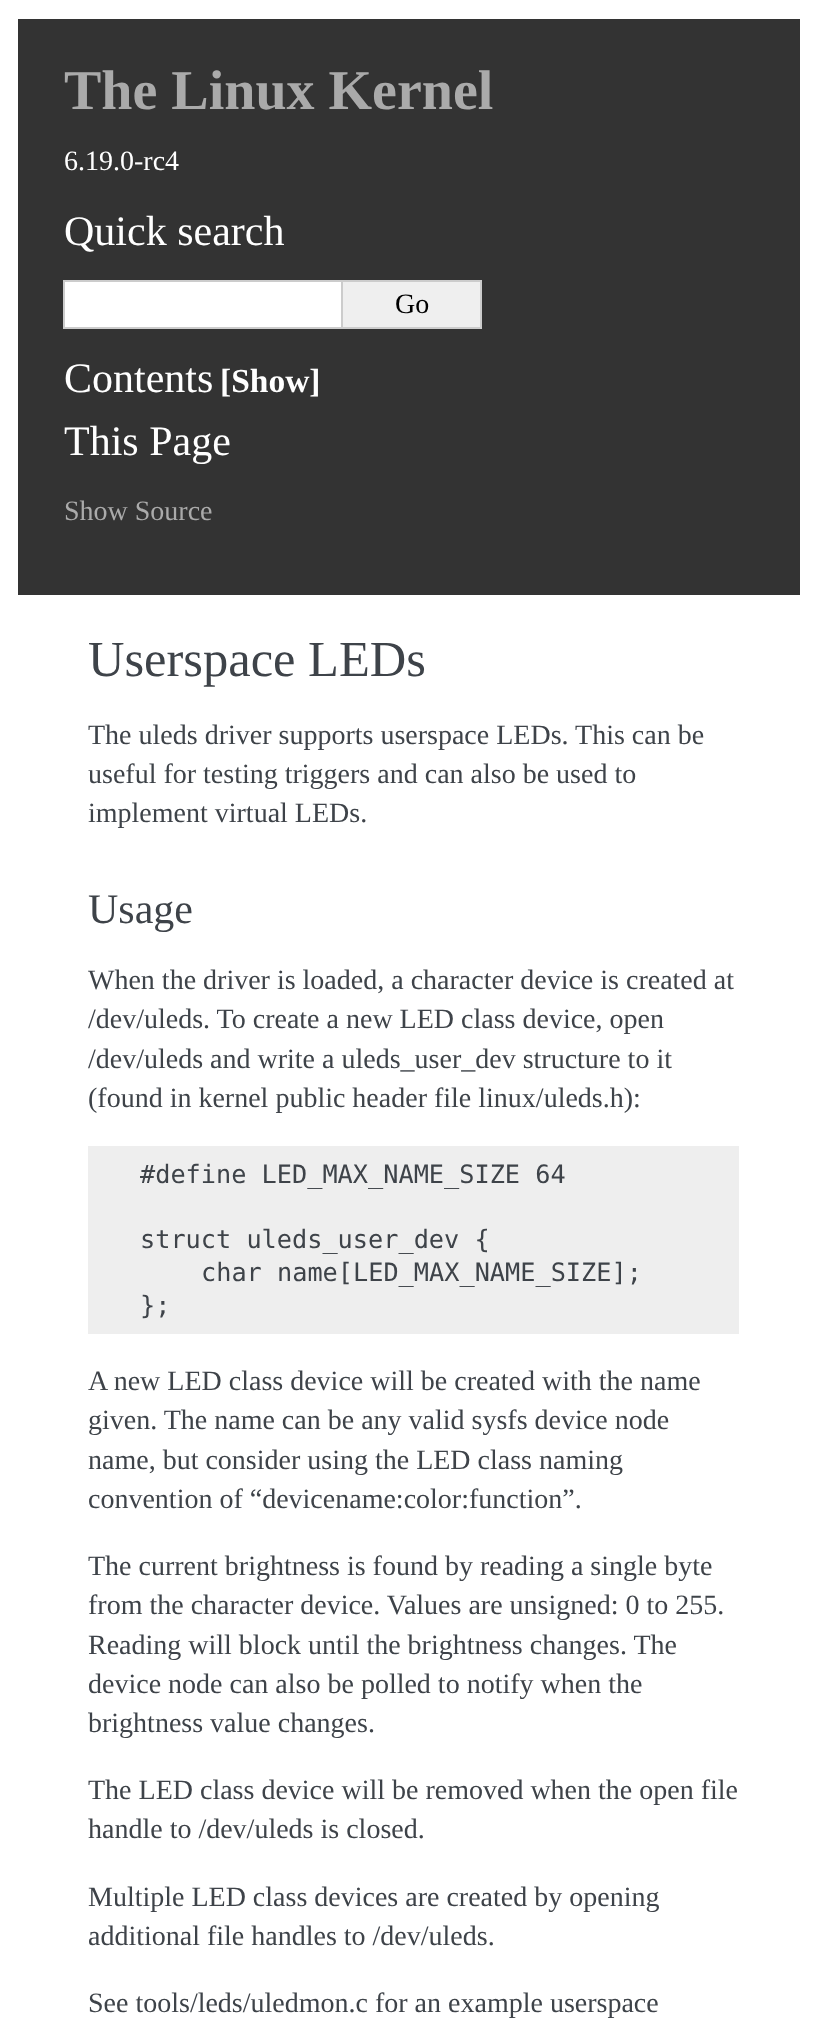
<?xml version="1.0" encoding="UTF-8"?>
<svg xmlns="http://www.w3.org/2000/svg" xmlns:xlink="http://www.w3.org/1999/xlink" width="834" height="2021">
  <rect width="100%" height="100%" fill="#ffffff" />
  <rect x="18" y="19" width="782" height="576" fill="#333333" />
  <rect x="64" y="281" width="278" height="47" fill="#ffffff" stroke="#cccccc" stroke-width="2" />
  <rect x="343" y="282" width="137" height="45" fill="#efefef" />
  <rect x="343" y="280" width="138" height="2" fill="#cccccc" />
  <rect x="480" y="280" width="2" height="49" fill="#cccccc" />
  <rect x="343" y="327" width="138" height="2" fill="#cccccc" />
  <rect x="88" y="1146" width="651" height="188" fill="#eeeeee" />
  <text x="64" y="109" style="font-family: Liberation Serif; font-size: 56px; font-weight: bold; fill: #aaaaaa">The Linux Kernel</text>
  <text x="64" y="170" style="font-family: Liberation Serif; font-size: 28px; fill: #ffffff">6.19.0-rc4</text>
  <text x="64" y="245" style="font-family: Liberation Serif; font-size: 42px; fill: #ffffff">Quick search</text>
  <text x="395" y="313" style="font-family: Liberation Serif; font-size: 28px; fill: #000000">Go</text>
  <text x="64" y="392" style="font-family: Liberation Serif; font-size: 42px; fill: #ffffff">Contents</text>
  <text x="220" y="392" style="font-family: Liberation Serif; font-size: 33.5px; font-weight: bold; fill: #ffffff">[Show]</text>
  <text x="64" y="455" style="font-family: Liberation Serif; font-size: 42px; fill: #ffffff">This Page</text>
  <text x="64" y="520" style="font-family: Liberation Serif; font-size: 28px; fill: #aaaaaa">Show Source</text>
  <text x="88" y="676" style="font-family: Liberation Serif; font-size: 50.5px; fill: #3e4349">Userspace LEDs</text>
  <text x="88" y="744" style="font-family: Liberation Serif; font-size: 28px; fill: #3e4349">The uleds driver supports userspace LEDs. This can be</text>
  <text x="88" y="783" style="font-family: Liberation Serif; font-size: 28px; fill: #3e4349">useful for testing triggers and can also be used to</text>
  <text x="88" y="822" style="font-family: Liberation Serif; font-size: 28px; fill: #3e4349">implement virtual LEDs.</text>
  <text x="88" y="923" style="font-family: Liberation Serif; font-size: 42px; fill: #3e4349">Usage</text>
  <text x="88" y="989" style="font-family: Liberation Serif; font-size: 28px; fill: #3e4349">When the driver is loaded, a character device is created at</text>
  <text x="88" y="1028" style="font-family: Liberation Serif; font-size: 28px; fill: #3e4349">/dev/uleds. To create a new LED class device, open</text>
  <text x="88" y="1068" style="font-family: Liberation Serif; font-size: 28px; fill: #3e4349">/dev/uleds and write a uleds_user_dev structure to it</text>
  <text x="88" y="1107" style="font-family: Liberation Serif; font-size: 28px; fill: #3e4349">(found in kernel public header file linux/uleds.h):</text>
  <text x="140" y="1183" style="font-family: DejaVu Sans Mono; font-size: 25.25px; fill: #3e4349">#define LED_MAX_NAME_SIZE 64</text>
  <text x="140" y="1248" style="font-family: DejaVu Sans Mono; font-size: 25.25px; fill: #3e4349">struct uleds_user_dev {</text>
  <text x="201" y="1281" style="font-family: DejaVu Sans Mono; font-size: 25.25px; fill: #3e4349">char name[LED_MAX_NAME_SIZE];</text>
  <text x="140" y="1314" style="font-family: DejaVu Sans Mono; font-size: 25.25px; fill: #3e4349">};</text>
  <text x="88" y="1390" style="font-family: Liberation Serif; font-size: 28px; fill: #3e4349">A new LED class device will be created with the name</text>
  <text x="88" y="1429" style="font-family: Liberation Serif; font-size: 28px; fill: #3e4349">given. The name can be any valid sysfs device node</text>
  <text x="88" y="1469" style="font-family: Liberation Serif; font-size: 28px; fill: #3e4349">name, but consider using the LED class naming</text>
  <text x="88" y="1508" style="font-family: Liberation Serif; font-size: 28px; fill: #3e4349">convention of “devicename:color:function”.</text>
  <text x="88" y="1575" style="font-family: Liberation Serif; font-size: 28px; fill: #3e4349">The current brightness is found by reading a single byte</text>
  <text x="88" y="1614" style="font-family: Liberation Serif; font-size: 28px; fill: #3e4349">from the character device. Values are unsigned: 0 to 255.</text>
  <text x="88" y="1654" style="font-family: Liberation Serif; font-size: 28px; fill: #3e4349">Reading will block until the brightness changes. The</text>
  <text x="88" y="1693" style="font-family: Liberation Serif; font-size: 28px; fill: #3e4349">device node can also be polled to notify when the</text>
  <text x="88" y="1732" style="font-family: Liberation Serif; font-size: 28px; fill: #3e4349">brightness value changes.</text>
  <text x="88" y="1799" style="font-family: Liberation Serif; font-size: 28px; fill: #3e4349">The LED class device will be removed when the open file</text>
  <text x="88" y="1838" style="font-family: Liberation Serif; font-size: 28px; fill: #3e4349">handle to /dev/uleds is closed.</text>
  <text x="88" y="1906" style="font-family: Liberation Serif; font-size: 28px; fill: #3e4349">Multiple LED class devices are created by opening</text>
  <text x="88" y="1945" style="font-family: Liberation Serif; font-size: 28px; fill: #3e4349">additional file handles to /dev/uleds.</text>
  <text x="88" y="2012" style="font-family: Liberation Serif; font-size: 28px; fill: #3e4349">See tools/leds/uledmon.c for an example userspace</text>
</svg>
